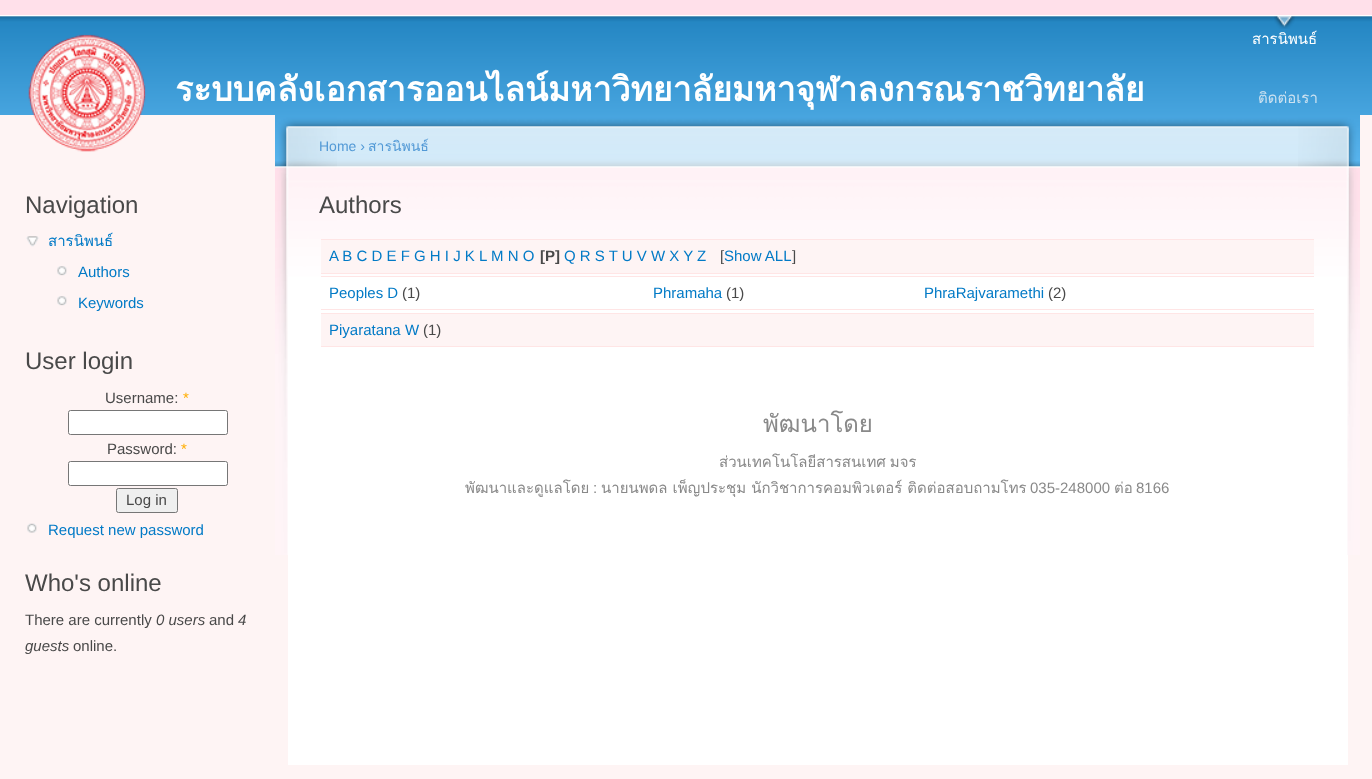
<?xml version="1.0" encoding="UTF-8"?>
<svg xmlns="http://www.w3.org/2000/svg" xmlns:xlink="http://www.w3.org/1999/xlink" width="1372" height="779">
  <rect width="100%" height="100%" fill="#fef4f4" />
  <rect width="1372" height="15" fill="#ffe0ea" />
  <image x="0" y="15" width="1372" height="100" xlink:href="image1.png" />
  <image x="1274" y="16" width="21" height="13" xlink:href="image2.png" />
  <image x="28" y="34" width="118" height="118" xlink:href="image3.png" />
  <image x="26" y="236" width="13" height="11" xlink:href="image4.png" />
  <image x="57" y="266" width="10" height="10" xlink:href="image5.png" />
  <image x="57" y="296" width="10" height="10" xlink:href="image5.png" />
  <rect x="68.5" y="410.5" width="159" height="24" rx="2" fill="#ffffff" stroke="#767676" />
  <rect x="68.5" y="461.5" width="159" height="24" rx="2" fill="#ffffff" stroke="#767676" />
  <rect x="116.5" y="488.5" width="61" height="24" rx="2" fill="#efefef" stroke="#767676" />
  <image x="27" y="523" width="10" height="10" xlink:href="image6.png" />
  <rect x="288" y="365" width="1060" height="400" fill="#ffffff" />
  <image x="337" y="115" width="961" height="250" xlink:href="image7.png" />
  <image x="1298" y="115" width="62" height="440" xlink:href="image8.png" />
  <image x="275" y="115" width="62" height="440" xlink:href="image9.png" />
  <rect x="321" y="240" width="993" height="33" fill="#fef4f4" />
  <rect x="321" y="239" width="993" height="1" fill="#ffe5e5" />
  <rect x="321" y="273" width="993" height="1" fill="#ffe5e5" />
  <rect x="321" y="276" width="993" height="1" fill="#ffe5e5" />
  <rect x="321" y="309" width="993" height="1" fill="#ffe5e5" />
  <rect x="321" y="314" width="993" height="32" fill="#fef4f4" />
  <rect x="321" y="313" width="993" height="1" fill="#ffe5e5" />
  <rect x="321" y="346" width="993" height="1" fill="#ffe5e5" />
  <text x="1252" y="44" style="font-family: Loma; font-size: 15px; fill: #ffffff">สารนิพนธ์</text>
  <text x="175" y="101" style="font-family: Loma; font-size: 33.75px; font-weight: bold; fill: #ffffff">ระบบคลังเอกสารออนไลน์มหาวิทยาลัยมหาจุฬาลงกรณราชวิทยาลัย</text>
  <text x="1258" y="103" style="font-family: Loma; font-size: 15px; fill: #cde2f1">ติดต่อเรา</text>
  <text x="25" y="213" style="font-family: Liberation Sans; font-size: 24px; fill: #494949">Navigation</text>
  <text x="48" y="246" style="font-family: Loma; font-size: 15px; fill: #027ac6">สารนิพนธ์</text>
  <text x="78" y="277" style="font-family: Liberation Sans; font-size: 15px; fill: #027ac6">Authors</text>
  <text x="78" y="308" style="font-family: Liberation Sans; font-size: 15px; fill: #027ac6">Keywords</text>
  <text x="25" y="369" style="font-family: Liberation Sans; font-size: 24px; fill: #494949">User login</text>
  <text x="105" y="403" style="font-family: Liberation Sans; font-size: 15px; fill: #494949">Username:</text>
  <text x="183" y="403" style="font-family: Liberation Sans; font-size: 15px; fill: #ffae00">*</text>
  <text x="107" y="454" style="font-family: Liberation Sans; font-size: 15px; fill: #494949">Password:</text>
  <text x="181" y="454" style="font-family: Liberation Sans; font-size: 15px; fill: #ffae00">*</text>
  <text x="126" y="505" style="font-family: Liberation Sans; font-size: 15px; fill: #494949">Log in</text>
  <text x="48" y="535" style="font-family: Liberation Sans; font-size: 15px; fill: #027ac6">Request new password</text>
  <text x="25" y="591" style="font-family: Liberation Sans; font-size: 24px; fill: #494949">Who's online</text>
  <text x="25" y="625" style="font-family: Liberation Sans; font-size: 15px; fill: #494949">There are currently</text>
  <text x="156" y="625" style="font-family: Liberation Sans; font-size: 15px; font-style: italic; fill: #494949">0 users</text>
  <text x="209" y="625" style="font-family: Liberation Sans; font-size: 15px; fill: #494949">and</text>
  <text x="238" y="625" style="font-family: Liberation Sans; font-size: 15px; font-style: italic; fill: #494949">4</text>
  <text x="25" y="651" style="font-family: Liberation Sans; font-size: 15px; font-style: italic; fill: #494949">guests</text>
  <text x="73" y="651" style="font-family: Liberation Sans; font-size: 15px; fill: #494949">online.</text>
  <text x="319" y="151" style="font-family: Liberation Sans; font-size: 14px; fill: #5299d6">Home ›</text>
  <text x="368" y="151" style="font-family: Loma; font-size: 14px; fill: #5299d6">สารนิพนธ์</text>
  <text x="319" y="213" style="font-family: Liberation Sans; font-size: 24px; fill: #494949">Authors</text>
  <text x="329" y="261" style="font-family: Liberation Sans; font-size: 15px; fill: #027ac6">A B C D E F G H I J K L M N O</text>
  <text x="540" y="261" style="font-family: Liberation Sans; font-size: 15px; font-weight: bold; fill: #494949">[P]</text>
  <text x="564" y="261" style="font-family: Liberation Sans; font-size: 15px; fill: #027ac6">Q R S T U V W X Y Z</text>
  <text x="720" y="261" style="font-family: Liberation Sans; font-size: 15px; fill: #494949">[</text>
  <text x="724" y="261" style="font-family: Liberation Sans; font-size: 15px; fill: #027ac6">Show ALL</text>
  <text x="792" y="261" style="font-family: Liberation Sans; font-size: 15px; fill: #494949">]</text>
  <text x="329" y="298" style="font-family: Liberation Sans; font-size: 15px; fill: #027ac6">Peoples D</text>
  <text x="402" y="298" style="font-family: Liberation Sans; font-size: 15px; fill: #494949">(1)</text>
  <text x="653" y="298" style="font-family: Liberation Sans; font-size: 15px; fill: #027ac6">Phramaha</text>
  <text x="726" y="298" style="font-family: Liberation Sans; font-size: 15px; fill: #494949">(1)</text>
  <text x="924" y="298" style="font-family: Liberation Sans; font-size: 15px; fill: #027ac6">PhraRajvaramethi</text>
  <text x="1048" y="298" style="font-family: Liberation Sans; font-size: 15px; fill: #494949">(2)</text>
  <text x="329" y="335" style="font-family: Liberation Sans; font-size: 15px; fill: #027ac6">Piyaratana W</text>
  <text x="423" y="335" style="font-family: Liberation Sans; font-size: 15px; fill: #494949">(1)</text>
  <text x="763" y="432" style="font-family: Loma; font-size: 24px; fill: #898989">พัฒนาโดย</text>
  <text x="719" y="467" word-spacing="-1" style="font-family: Loma; font-size: 15px; fill: #898989">ส่วนเทคโนโลยีสารสนเทศ มจร</text>
  <text x="465" y="493" style="font-family: Loma; font-size: 15px; fill: #898989">พัฒนาและดูแลโดย</text>
  <text x="593" y="493" style="font-family: Liberation Sans; font-size: 15px; fill: #898989">:</text>
  <text x="601" y="493" style="font-family: Loma; font-size: 15px; fill: #898989">นายนพดล เพ็ญประชุม นักวิชาการคอมพิวเตอร์ ติดต่อสอบถามโทร</text>
  <text x="1030" y="493" style="font-family: Liberation Sans; font-size: 15px; fill: #898989">035-248000</text>
  <text x="1114" y="493" style="font-family: Loma; font-size: 15px; fill: #898989">ต่อ</text>
  <text x="1136" y="493" style="font-family: Liberation Sans; font-size: 15px; fill: #898989">8166</text>
</svg>
